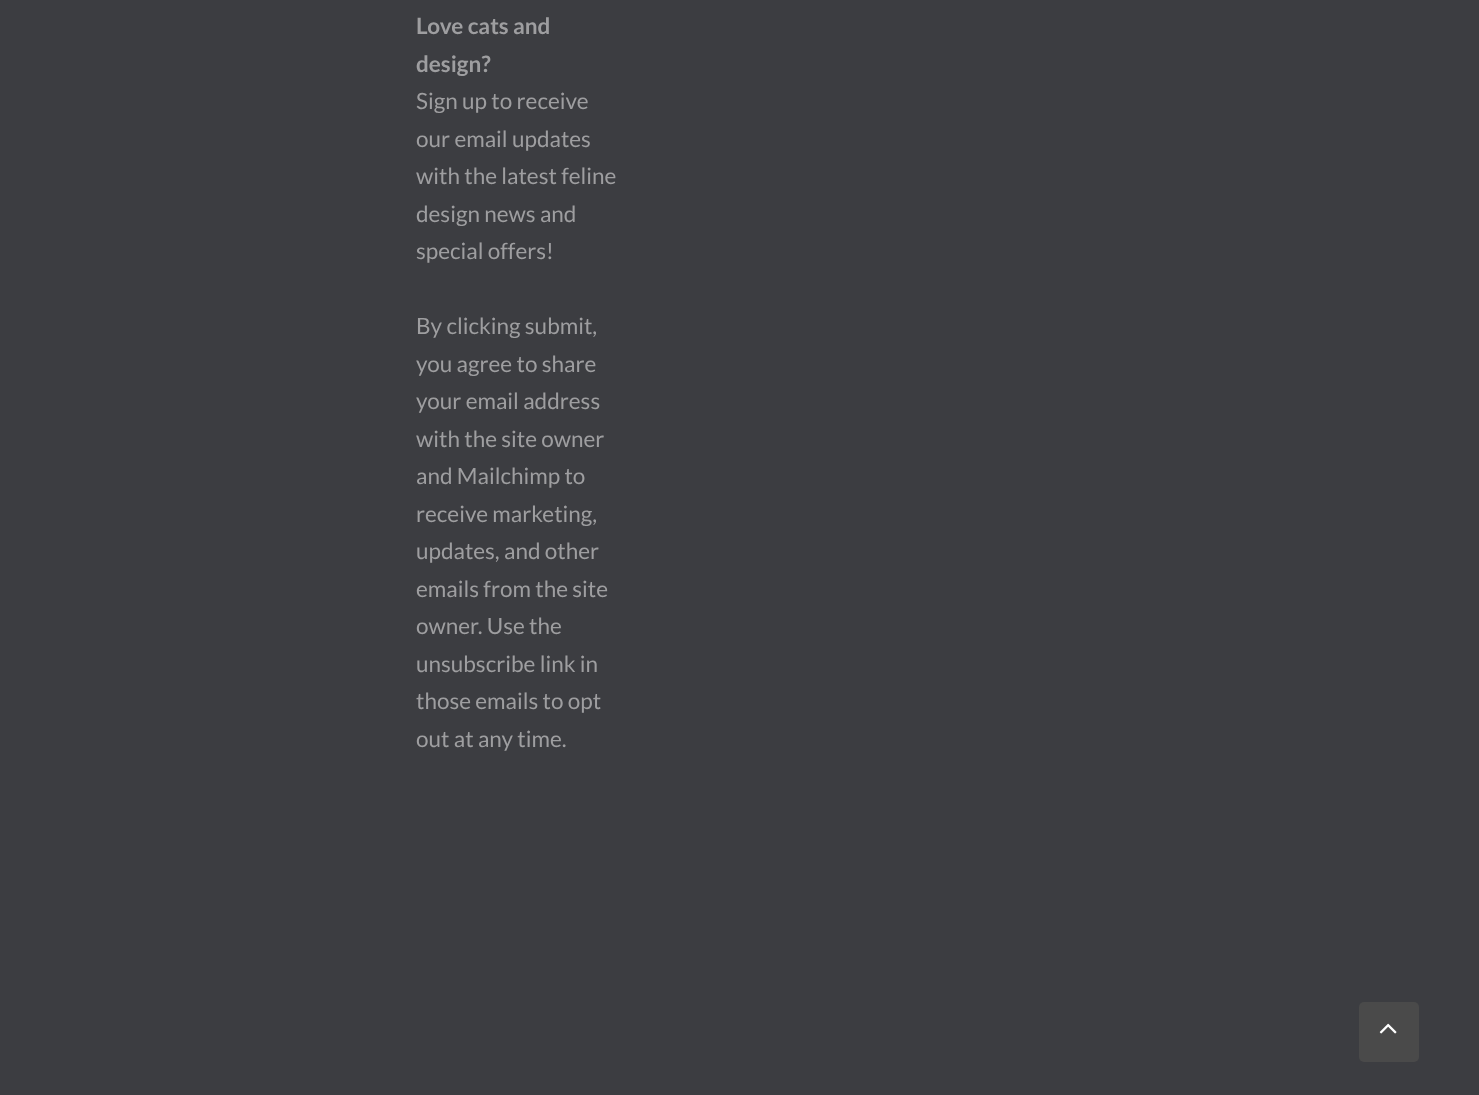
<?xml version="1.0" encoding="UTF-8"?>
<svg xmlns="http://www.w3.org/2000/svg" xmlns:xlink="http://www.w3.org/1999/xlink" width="1479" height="1095">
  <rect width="100%" height="100%" fill="#3c3d41" />
  <rect x="1359" y="1002" width="60" height="60" rx="5" fill="#4a4a4a" />
  <image x="1379" y="1023" width="18" height="11" xlink:href="image1.png" />
  <text x="416" y="34" style="font-family: Lato; font-size: 22.5px; font-weight: bold; fill: #9e9ea0">Love cats and</text>
  <text x="416" y="72" style="font-family: Lato; font-size: 22.5px; font-weight: bold; fill: #9e9ea0">design?</text>
  <text x="416" y="109" style="font-family: Lato; font-size: 22.5px; fill: #9e9ea0">Sign up to receive</text>
  <text x="416" y="147" style="font-family: Lato; font-size: 22.5px; fill: #9e9ea0">our email updates</text>
  <text x="416" y="184" style="font-family: Lato; font-size: 22.5px; fill: #9e9ea0">with the latest feline</text>
  <text x="416" y="222" style="font-family: Lato; font-size: 22.5px; fill: #9e9ea0">design news and</text>
  <text x="416" y="259" style="font-family: Lato; font-size: 22.5px; fill: #9e9ea0">special offers!</text>
  <text x="416" y="334" style="font-family: Lato; font-size: 22.5px; fill: #9e9ea0">By clicking submit,</text>
  <text x="416" y="372" style="font-family: Lato; font-size: 22.5px; fill: #9e9ea0">you agree to share</text>
  <text x="416" y="409" style="font-family: Lato; font-size: 22.5px; fill: #9e9ea0">your email address</text>
  <text x="416" y="447" style="font-family: Lato; font-size: 22.5px; fill: #9e9ea0">with the site owner</text>
  <text x="416" y="484" style="font-family: Lato; font-size: 22.5px; fill: #9e9ea0">and Mailchimp to</text>
  <text x="416" y="522" style="font-family: Lato; font-size: 22.5px; fill: #9e9ea0">receive marketing,</text>
  <text x="416" y="559" style="font-family: Lato; font-size: 22.5px; fill: #9e9ea0">updates, and other</text>
  <text x="416" y="597" style="font-family: Lato; font-size: 22.5px; fill: #9e9ea0">emails from the site</text>
  <text x="416" y="634" style="font-family: Lato; font-size: 22.5px; fill: #9e9ea0">owner. Use the</text>
  <text x="416" y="672" style="font-family: Lato; font-size: 22.5px; fill: #9e9ea0">unsubscribe link in</text>
  <text x="416" y="709" style="font-family: Lato; font-size: 22.5px; fill: #9e9ea0">those emails to opt</text>
  <text x="416" y="747" style="font-family: Lato; font-size: 22.5px; fill: #9e9ea0">out at any time.</text>
</svg>
